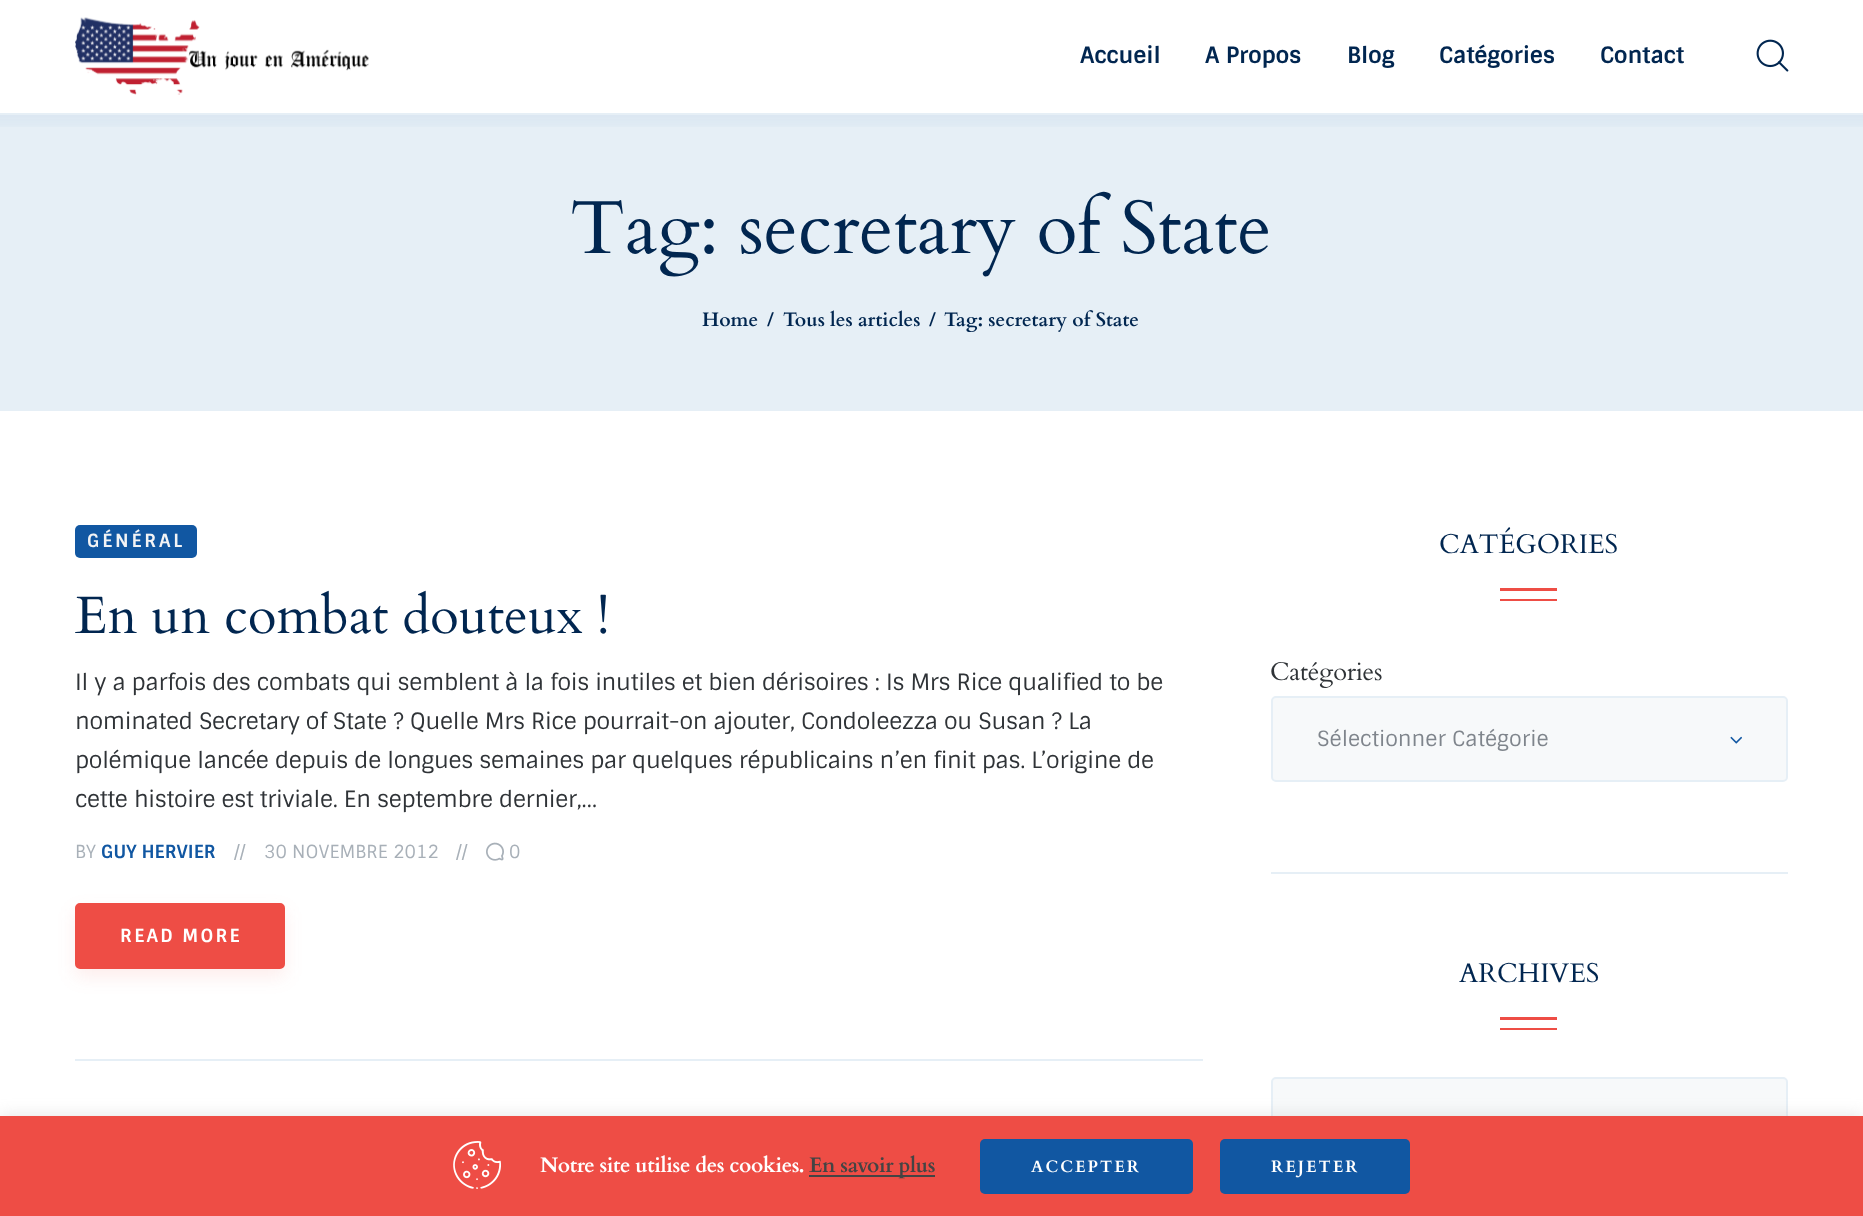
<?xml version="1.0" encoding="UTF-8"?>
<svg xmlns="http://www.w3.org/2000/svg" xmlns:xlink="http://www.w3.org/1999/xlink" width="1863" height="1216">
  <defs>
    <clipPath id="clip1"><rect x="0" y="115" width="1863" height="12" /></clipPath>
  </defs>
  <rect width="100%" height="100%" fill="#ffffff" />
  <rect y="115" width="1863" height="296" fill="#e6eff6" />
  <g clip-path="url(#clip1)">
    <rect x="-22" y="5" width="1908" height="114" fill="#1157a2" fill-opacity="0.08" filter="blur(12px)" />
  </g>
  <rect y="113" width="1863" height="2" fill="#e6eff6" />
  <image x="75" y="17" width="294" height="78" xlink:href="image1.png" />
  <image x="1756" y="39" width="33" height="33" xlink:href="image2.png" />
  <rect x="75" y="525" width="122" height="33" rx="5" fill="#1157a2" />
  <image x="486" y="842" width="18" height="19" xlink:href="image3.png" />
  <rect x="75" y="911" width="210" height="66" rx="5" fill="#ee4d45" fill-opacity="0.1" filter="blur(9px)" />
  <rect x="76.5" y="904.5" width="207" height="63" rx="3.5" fill="#ee4d45" stroke="#ee4d45" stroke-width="3" />
  <rect x="75" y="1059" width="1128" height="2" fill="#e6eff6" />
  <rect x="1500" y="588" width="57" height="3" fill="#ee4d45" />
  <rect x="1500" y="599" width="57" height="2" fill="#ee4d45" />
  <rect x="1272" y="697" width="515" height="84" rx="4" fill="#f7f9fa" stroke="#e6eff6" stroke-width="2" />
  <image x="1730" y="736" width="12" height="8" xlink:href="image4.png" />
  <rect x="1271" y="872" width="517" height="2" fill="#e6eff6" />
  <rect x="1500" y="1017" width="57" height="3" fill="#ee4d45" />
  <rect x="1500" y="1028" width="57" height="2" fill="#ee4d45" />
  <rect x="1272" y="1078" width="515" height="84" rx="4" fill="#f7f9fa" stroke="#e6eff6" stroke-width="2" />
  <rect y="1115" width="1863" height="100" fill="#acabab" fill-opacity="0.3" filter="blur(7.5px)" />
  <rect y="1116" width="1863" height="100" fill="#ee4d45" />
  <image x="453" y="1141" width="48" height="48" xlink:href="image5.png" />
  <rect x="809" y="1175" width="126" height="2" fill="#444444" />
  <rect x="980" y="1139" width="213" height="55" rx="5" fill="#1157a2" />
  <rect x="1220" y="1139" width="190" height="55" rx="5" fill="#1157a2" />
  <text x="1080" y="63" style="font-family: Sintony; font-size: 22.5px; font-weight: bold; fill: #012650">Accueil</text>
  <text x="1205" y="63" style="font-family: Sintony; font-size: 22.5px; font-weight: bold; fill: #012650">A Propos</text>
  <text x="1347" y="63" style="font-family: Sintony; font-size: 22.5px; font-weight: bold; fill: #012650">Blog</text>
  <text x="1439" y="63" style="font-family: Sintony; font-size: 22.5px; font-weight: bold; fill: #012650">Catégories</text>
  <text x="1600" y="63" style="font-family: Sintony; font-size: 22.5px; font-weight: bold; fill: #012650">Contact</text>
  <text x="570" y="253" style="font-family: Cardo; font-size: 75px; fill: #012650">Tag: secretary of State</text>
  <text x="702" y="326" style="font-family: Cardo; font-size: 19.5px; font-weight: bold; fill: #012650">Home</text>
  <text x="767" y="326" style="font-family: Cardo; font-size: 19.5px; font-weight: bold; fill: #012650">/</text>
  <text x="783" y="326" style="font-family: Cardo; font-size: 19.5px; font-weight: bold; fill: #012650">Tous les articles</text>
  <text x="929" y="326" style="font-family: Cardo; font-size: 19.5px; font-weight: bold; fill: #012650">/</text>
  <text x="944" y="326" style="font-family: Cardo; font-size: 19.5px; font-weight: bold; fill: #012650">Tag: secretary of State</text>
  <text x="87" y="547" style="font-family: Sintony; font-size: 18px; font-weight: bold; letter-spacing: 2.75px; fill: #f2f3f5">GÉNÉRAL</text>
  <text x="75" y="633" style="font-family: Cardo; font-size: 52.5px; fill: #012650">En un combat douteux !</text>
  <text x="75" y="690" style="font-family: Sintony; font-size: 22.5px; letter-spacing: -0.26px; fill: #2f3337">Il y a parfois des combats qui semblent à la fois inutiles et bien dérisoires : Is Mrs Rice qualified to be</text>
  <text x="75" y="729" style="font-family: Sintony; font-size: 22.5px; letter-spacing: -0.26px; fill: #2f3337">nominated Secretary of State ? Quelle Mrs Rice pourrait-on ajouter, Condoleezza ou Susan ? La</text>
  <text x="75" y="768" style="font-family: Sintony; font-size: 22.5px; letter-spacing: -0.26px; fill: #2f3337">polémique lancée depuis de longues semaines par quelques républicains n’en finit pas. L’origine de</text>
  <text x="75" y="807" style="font-family: Sintony; font-size: 22.5px; letter-spacing: -0.26px; fill: #2f3337">cette histoire est triviale. En septembre dernier,…</text>
  <text x="75" y="858" style="font-family: Sintony; font-size: 18px; fill: #a8b0b8">BY</text>
  <text x="101" y="858" style="font-family: Sintony; font-size: 18px; font-weight: bold; fill: #1157a2">GUY HERVIER</text>
  <text x="234" y="858" style="font-family: Sintony; font-size: 18px; fill: #a8b0b8">//</text>
  <text x="264" y="858" style="font-family: Sintony; font-size: 18px; fill: #a8b0b8">30 NOVEMBRE 2012</text>
  <text x="456" y="858" style="font-family: Sintony; font-size: 18px; fill: #a8b0b8">//</text>
  <text x="509" y="858" style="font-family: Sintony; font-size: 18px; fill: #a8b0b8">0</text>
  <text x="120" y="942" style="font-family: Sintony; font-size: 18px; font-weight: bold; letter-spacing: 2.25px; fill: #ffffff">READ MORE</text>
  <text x="1439" y="553" style="font-family: Cardo; font-size: 27px; fill: #012650">CATÉGORIES</text>
  <text x="1270" y="680" style="font-family: Cardo; font-size: 25.5px; letter-spacing: -0.26px; fill: #2f3337">Catégories</text>
  <text x="1317" y="746" style="font-family: Sintony; font-size: 21px; fill: #7f858c">Sélectionner Catégorie</text>
  <text x="1459" y="982" style="font-family: Cardo; font-size: 27px; fill: #012650">ARCHIVES</text>
  <text x="540" y="1172" style="font-family: Cardo; font-size: 21px; font-weight: bold; letter-spacing: -0.4px; fill: #ffffff">Notre site utilise des cookies.</text>
  <text x="809" y="1172" style="font-family: Cardo; font-size: 21px; font-weight: bold; letter-spacing: -0.4px; fill: #444444">En savoir plus</text>
  <text x="1031" y="1172" style="font-family: Cardo; font-size: 16.5px; font-weight: bold; letter-spacing: 2px; fill: #ffffff">ACCEPTER</text>
  <text x="1271" y="1172" style="font-family: Cardo; font-size: 16.5px; font-weight: bold; letter-spacing: 2px; fill: #ffffff">REJETER</text>
</svg>
